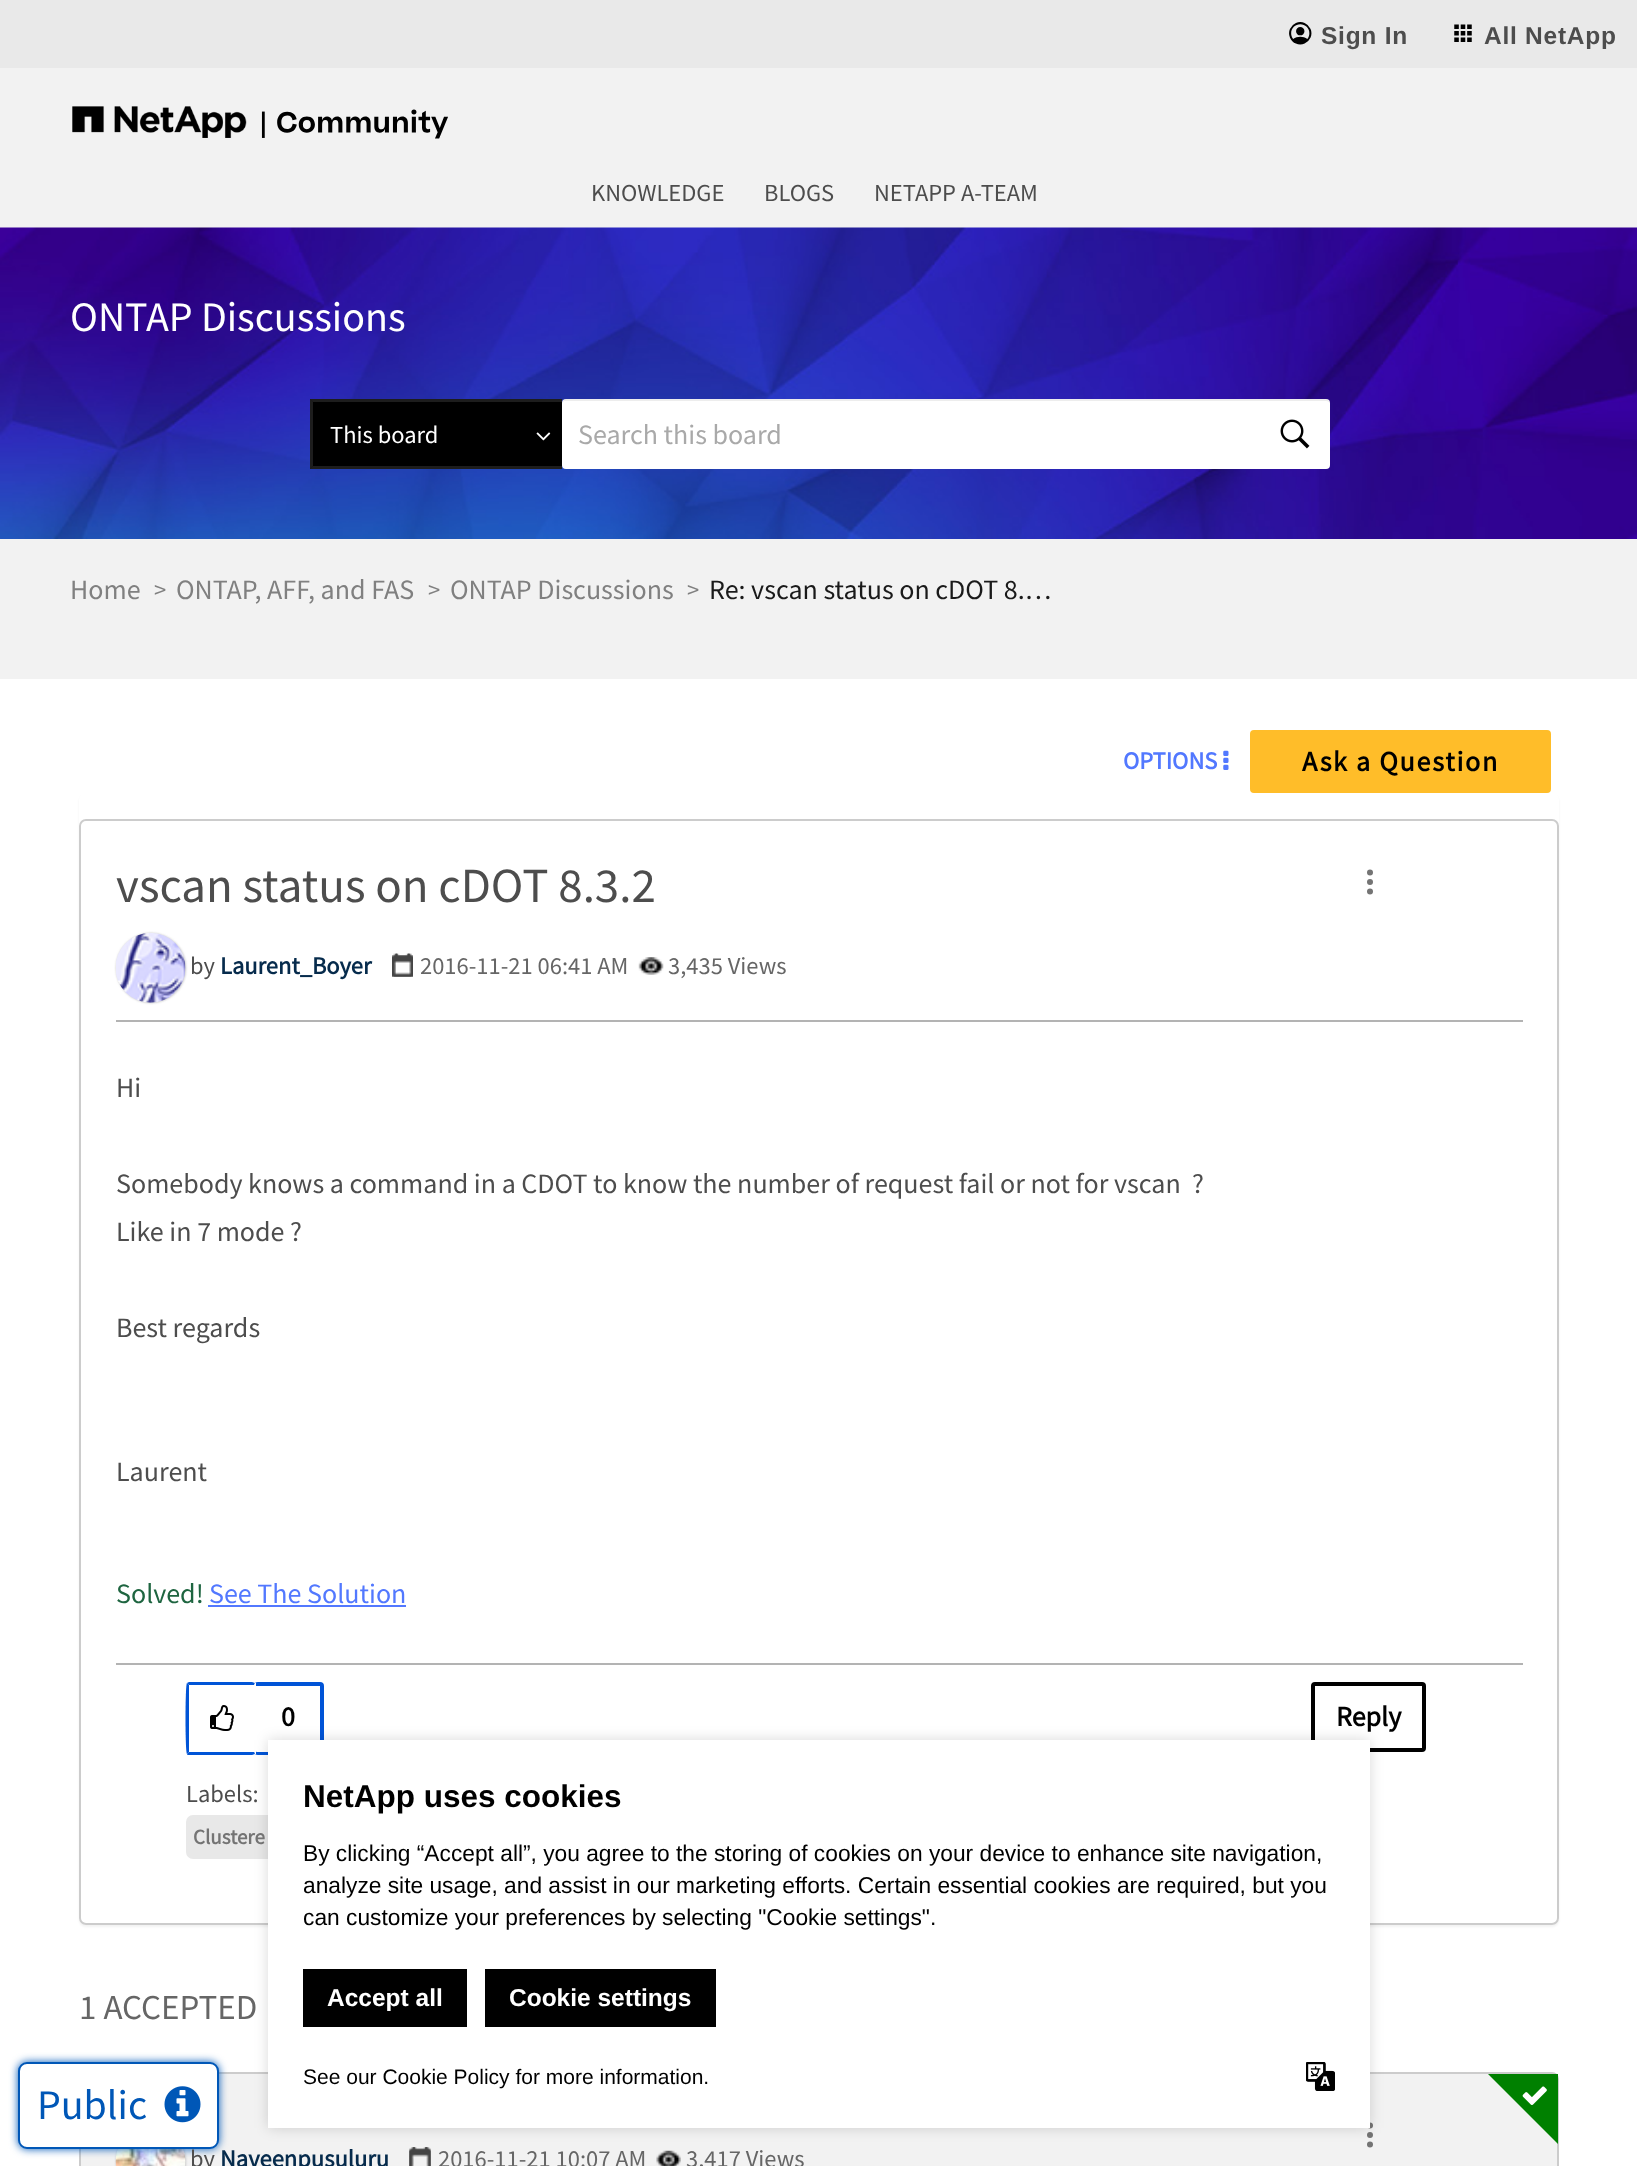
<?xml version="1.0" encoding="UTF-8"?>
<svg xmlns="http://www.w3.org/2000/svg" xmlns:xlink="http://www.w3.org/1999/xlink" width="1637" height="2166">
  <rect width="100%" height="100%" fill="#ffffff" />
  <rect width="1637" height="68" fill="#e9e9e9" />
  <image x="1289" y="22" width="23" height="23" xlink:href="image1.png" />
  <image x="1454" y="24" width="18" height="18" xlink:href="image2.png" />
  <rect y="68" width="1637" height="160" fill="#f2f2f2" />
  <image x="72" y="106" width="376" height="33" xlink:href="image3.png" />
  <rect y="539" width="1637" height="140" fill="#f2f2f2" />
  <image x="0" y="227" width="1637" height="312" xlink:href="image4.png" />
  <rect x="310" y="399" width="252" height="70" fill="#000000" />
  <path d="M 310 399 h 252 v 3 h -249 z" fill="#1d1d1d" />
  <path d="M 562 469 h -252 l 3 -3 h 249 z" fill="#1d1d1d" />
  <path d="M 310 469 v -70 l 3 3 v 64 z" fill="#c4c4c4" fill-opacity="0.15" />
  <image x="536" y="432" width="15" height="9" xlink:href="image5.png" />
  <rect x="562" y="399" width="768" height="70" rx="4" fill="#ffffff" />
  <path d="M 565 401 h 761 c 2 0 4 1 4 3 v -1 c 0 -2 -2 -4 -4 -4 h -760 c -2 0 -4 2 -4 4 v 1 c 0 -2 1 -3 3 -3 z" fill="#000000" fill-opacity="0.07" />
  <image x="1280" y="419" width="30" height="30" xlink:href="image6.png" />
  <image x="1223" y="750" width="6" height="20" xlink:href="image7.png" />
  <rect x="79" y="795" width="1480" height="1132" rx="7" fill="#000000" fill-opacity="0.05" filter="blur(1px)" />
  <rect x="1252" y="732" width="297" height="59" rx="2" fill="#ffbd29" stroke="#ffbd29" stroke-width="4" />
  <rect x="79" y="793" width="1480" height="1132" rx="7" fill="#ffffff" />
  <rect x="80" y="820" width="1478" height="1104" rx="6" fill="none" stroke="#cccccc" stroke-width="2" />
  <rect x="116" y="1020" width="1407" height="2" fill="#b3b3b3" />
  <rect x="116" y="933" width="70" height="70" rx="35" fill="#c4c4c4" filter="blur(1px)" />
  <image x="116" y="933" width="70" height="70" xlink:href="image8.png" />
  <image x="392" y="953" width="21" height="24" xlink:href="image9.png" />
  <image x="392" y="953" width="21" height="24" xlink:href="image11.png" />
  <image x="392" y="953" width="21" height="24" xlink:href="image10.png" />
  <image x="638" y="957" width="26" height="18" xlink:href="image12.png" />
  <circle cx="1370" cy="872.5" r="3" fill="#747474" />
  <circle cx="1370" cy="882" r="3" fill="#747474" />
  <circle cx="1370" cy="891.5" r="3" fill="#747474" />
  <rect x="208" y="1605" width="198" height="2" fill="#5278ff" />
  <rect x="116" y="1663" width="1407" height="2" fill="#b3b3b3" />
  <rect x="255" y="1683" width="68" height="71" rx="3" fill="none" stroke="#0054d7" stroke-width="2" />
  <path d="M 189 1682 l -2 1 l 2 2 h 65 l 1 -2 l -3 -1 z" fill="#0054d7" />
  <path d="M 256 1754 h -1 l -1 -2 v -67 l 1 -2 h 1 z" fill="#ffffff" />
  <path d="M 255 1754 l -3 1 h -63 c -1 0 -2 0 -2 -1 l 2 -2 h 65 z" fill="#0054d7" />
  <path d="M 187 1683 c -2 1 -2 70 0 71 l 2 -2 v -67 z" fill="#0054d7" />
  <image x="210" y="1705" width="24" height="26" xlink:href="image13.png" />
  <rect x="256" y="1684" width="66" height="2" fill="#0054d7" />
  <rect x="320" y="1684" width="2" height="56" fill="#0054d7" />
  <rect x="256" y="1752" width="12" height="1" fill="#0054d7" />
  <rect x="186" y="1815" width="222" height="44" rx="7" fill="#e8e8e8" />
  <rect x="1313" y="1684" width="111" height="66" rx="2" fill="none" stroke="#000000" stroke-width="4" />
  <rect x="80" y="2073" width="1478" height="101" rx="6" fill="#f2f2f2" stroke="#cccccc" stroke-width="2" />
  <path d="M 1488 2074 h 70 v 70 z" fill="#008000" />
  <image x="1522" y="2086" width="25" height="19" xlink:href="image14.png" />
  <circle cx="1370" cy="2125.5" r="3" fill="#747474" />
  <circle cx="1370" cy="2135" r="3" fill="#747474" />
  <circle cx="1370" cy="2144.5" r="3" fill="#747474" />
  <rect x="116" y="2126" width="70" height="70" rx="35" fill="#c4c4c4" filter="blur(1px)" />
  <image x="115" y="2149" width="71" height="17" xlink:href="image15.png" />
  <image x="409" y="2147" width="22" height="19" xlink:href="image16.png" />
  <image x="409" y="2147" width="22" height="19" xlink:href="image18.png" />
  <image x="409" y="2147" width="22" height="19" xlink:href="image17.png" />
  <image x="656" y="2150" width="25" height="16" xlink:href="image19.png" />
  <rect x="18" y="2062" width="201" height="87" rx="9" fill="#0057b7" filter="blur(4.5px)" />
  <rect x="19" y="2063" width="199" height="85" rx="8" fill="#ffffff" stroke="#0057b7" stroke-width="2" />
  <image x="164" y="2086" width="37" height="37" xlink:href="image20.png" />
  <rect x="268" y="1740" width="1102" height="388" fill="#000000" fill-opacity="0.15" filter="blur(7px)" />
  <rect x="268" y="1740" width="1102" height="388" fill="#ffffff" />
  <rect x="303" y="1969" width="164" height="58" fill="#000000" />
  <rect x="485" y="1969" width="231" height="58" fill="#000000" />
  <image x="1306" y="2062" width="29" height="29" xlink:href="image21.png" />
  <text x="1321" y="44" style="font-family: Liberation Sans; font-size: 24.5px; font-weight: bold; letter-spacing: 0.75px; fill: #4d4d4d">Sign In</text>
  <text x="1484" y="44" style="font-family: Liberation Sans; font-size: 24.5px; font-weight: bold; letter-spacing: 0.75px; fill: #4d4d4d">All NetApp</text>
  <text x="591" y="201" style="font-family: Source Sans Pro; font-size: 24.5px; fill: #4d4d4d">KNOWLEDGE</text>
  <text x="764" y="201" style="font-family: Source Sans Pro; font-size: 24.5px; fill: #4d4d4d">BLOGS</text>
  <text x="874" y="201" style="font-family: Source Sans Pro; font-size: 24.5px; fill: #4d4d4d">NETAPP A-TEAM</text>
  <text x="70" y="331" style="font-family: Source Sans Pro; font-size: 42px; fill: #ffffff">ONTAP Discussions</text>
  <text x="330" y="443" style="font-family: Source Sans Pro; font-size: 24.5px; fill: #ffffff">This board</text>
  <text x="578" y="444" style="font-family: Source Sans Pro; font-size: 28px; fill: #a9a9a9">Search this board</text>
  <text x="70" y="599" style="font-family: Source Sans Pro; font-size: 28px; fill: #808080">Home</text>
  <text x="154" y="598" style="font-family: Source Sans Pro; font-size: 24.5px; fill: #808080">&gt;</text>
  <text x="176" y="599" style="font-family: Source Sans Pro; font-size: 28px; fill: #808080">ONTAP, AFF, and FAS</text>
  <text x="428" y="598" style="font-family: Source Sans Pro; font-size: 24.5px; fill: #808080">&gt;</text>
  <text x="450" y="599" style="font-family: Source Sans Pro; font-size: 28px; fill: #808080">ONTAP Discussions</text>
  <text x="687" y="598" style="font-family: Source Sans Pro; font-size: 24.5px; fill: #808080">&gt;</text>
  <text x="709" y="599" style="font-family: Source Sans Pro; font-size: 28px; fill: #1a1a1a">Re: vscan status on cDOT 8.…</text>
  <text x="1123" y="769" style="font-family: Source Sans Pro; font-size: 24.5px; font-weight: bold; fill: #5278ff">OPTIONS</text>
  <text x="1302" y="771" style="font-family: Source Sans Pro; font-size: 28px; font-weight: bold; letter-spacing: 1.75px; fill: #000000">Ask a Question</text>
  <text x="116" y="902" style="font-family: Source Sans Pro; font-size: 49px; fill: #4d4d4d">vscan status on cDOT 8.3.2</text>
  <text x="190" y="974" style="font-family: Source Sans Pro; font-size: 24.5px; fill: #4d4d4d">by</text>
  <text x="220" y="974" style="font-family: Source Sans Pro; font-size: 24.5px; font-weight: bold; fill: #062b4c">Laurent_Boyer</text>
  <text x="420" y="974" style="font-family: Source Sans Pro; font-size: 24.5px; fill: #666666">2016-11-21 06:41 AM</text>
  <text x="668" y="974" style="font-family: Source Sans Pro; font-size: 24.5px; fill: #666666">3,435 Views</text>
  <text x="116" y="1097" style="font-family: Source Sans Pro; font-size: 28px; fill: #4d4d4d">Hi</text>
  <text x="116" y="1193" style="font-family: Source Sans Pro; font-size: 28px; fill: #4d4d4d" xml:space="preserve">Somebody knows a command in a CDOT to know the number of request fail or not for vscan  ?</text>
  <text x="116" y="1241" style="font-family: Source Sans Pro; font-size: 28px; fill: #4d4d4d">Like in 7 mode ?</text>
  <text x="116" y="1337" style="font-family: Source Sans Pro; font-size: 28px; fill: #4d4d4d">Best regards</text>
  <text x="116" y="1481" style="font-family: Source Sans Pro; font-size: 28px; fill: #4d4d4d">Laurent</text>
  <text x="116" y="1603" style="font-family: Source Sans Pro; font-size: 28px; fill: #1e6540">Solved!</text>
  <text x="209" y="1603" style="font-family: Source Sans Pro; font-size: 28px; fill: #5278ff">See The Solution</text>
  <text x="281" y="1726" style="font-family: Source Sans Pro; font-size: 28px; font-weight: bold; fill: #000000">0</text>
  <text x="186" y="1802" style="font-family: Source Sans Pro; font-size: 24.5px; fill: #4d4d4d">Labels:</text>
  <text x="193" y="1844" style="font-family: Source Sans Pro; font-size: 21px; font-weight: bold; fill: #747474">Clustere</text>
  <text x="1336" y="1726" style="font-family: Source Sans Pro; font-size: 28px; font-weight: bold; fill: #000000">Reply</text>
  <text x="79" y="2019" style="font-family: Source Sans Pro; font-size: 35px; fill: #666666">1 ACCEPTED</text>
  <text x="190" y="2167" style="font-family: Source Sans Pro; font-size: 24.5px; fill: #4d4d4d">by</text>
  <text x="220" y="2167" style="font-family: Source Sans Pro; font-size: 24.5px; font-weight: bold; fill: #062b4c">Naveenpusuluru</text>
  <text x="438" y="2167" style="font-family: Source Sans Pro; font-size: 24.5px; fill: #666666">2016-11-21 10:07 AM</text>
  <text x="686" y="2167" style="font-family: Source Sans Pro; font-size: 24.5px; fill: #666666">3,417 Views</text>
  <text x="37" y="2119" style="font-family: Source Sans Pro; font-size: 42px; fill: #0057b7">Public</text>
  <text x="303" y="1807" style="font-family: Liberation Sans; font-size: 31.5px; font-weight: bold; fill: #000000">NetApp uses cookies</text>
  <text x="303" y="1861" style="font-family: Liberation Sans; font-size: 22.75px; fill: #000000">By clicking “Accept all”, you agree to the storing of cookies on your device to enhance site navigation,</text>
  <text x="303" y="1893" style="font-family: Liberation Sans; font-size: 22.75px; fill: #000000">analyze site usage, and assist in our marketing efforts. Certain essential cookies are required, but you</text>
  <text x="303" y="1925" style="font-family: Liberation Sans; font-size: 22.75px; fill: #000000">can customize your preferences by selecting "Cookie settings".</text>
  <text x="327" y="2006" style="font-family: Liberation Sans; font-size: 24.5px; font-weight: bold; fill: #ffffff">Accept all</text>
  <text x="509" y="2006" style="font-family: Liberation Sans; font-size: 24.5px; font-weight: bold; fill: #ffffff">Cookie settings</text>
  <text x="303" y="2084" style="font-family: Liberation Sans; font-size: 21px; fill: #000000">See our Cookie Policy for more information.</text>
</svg>
